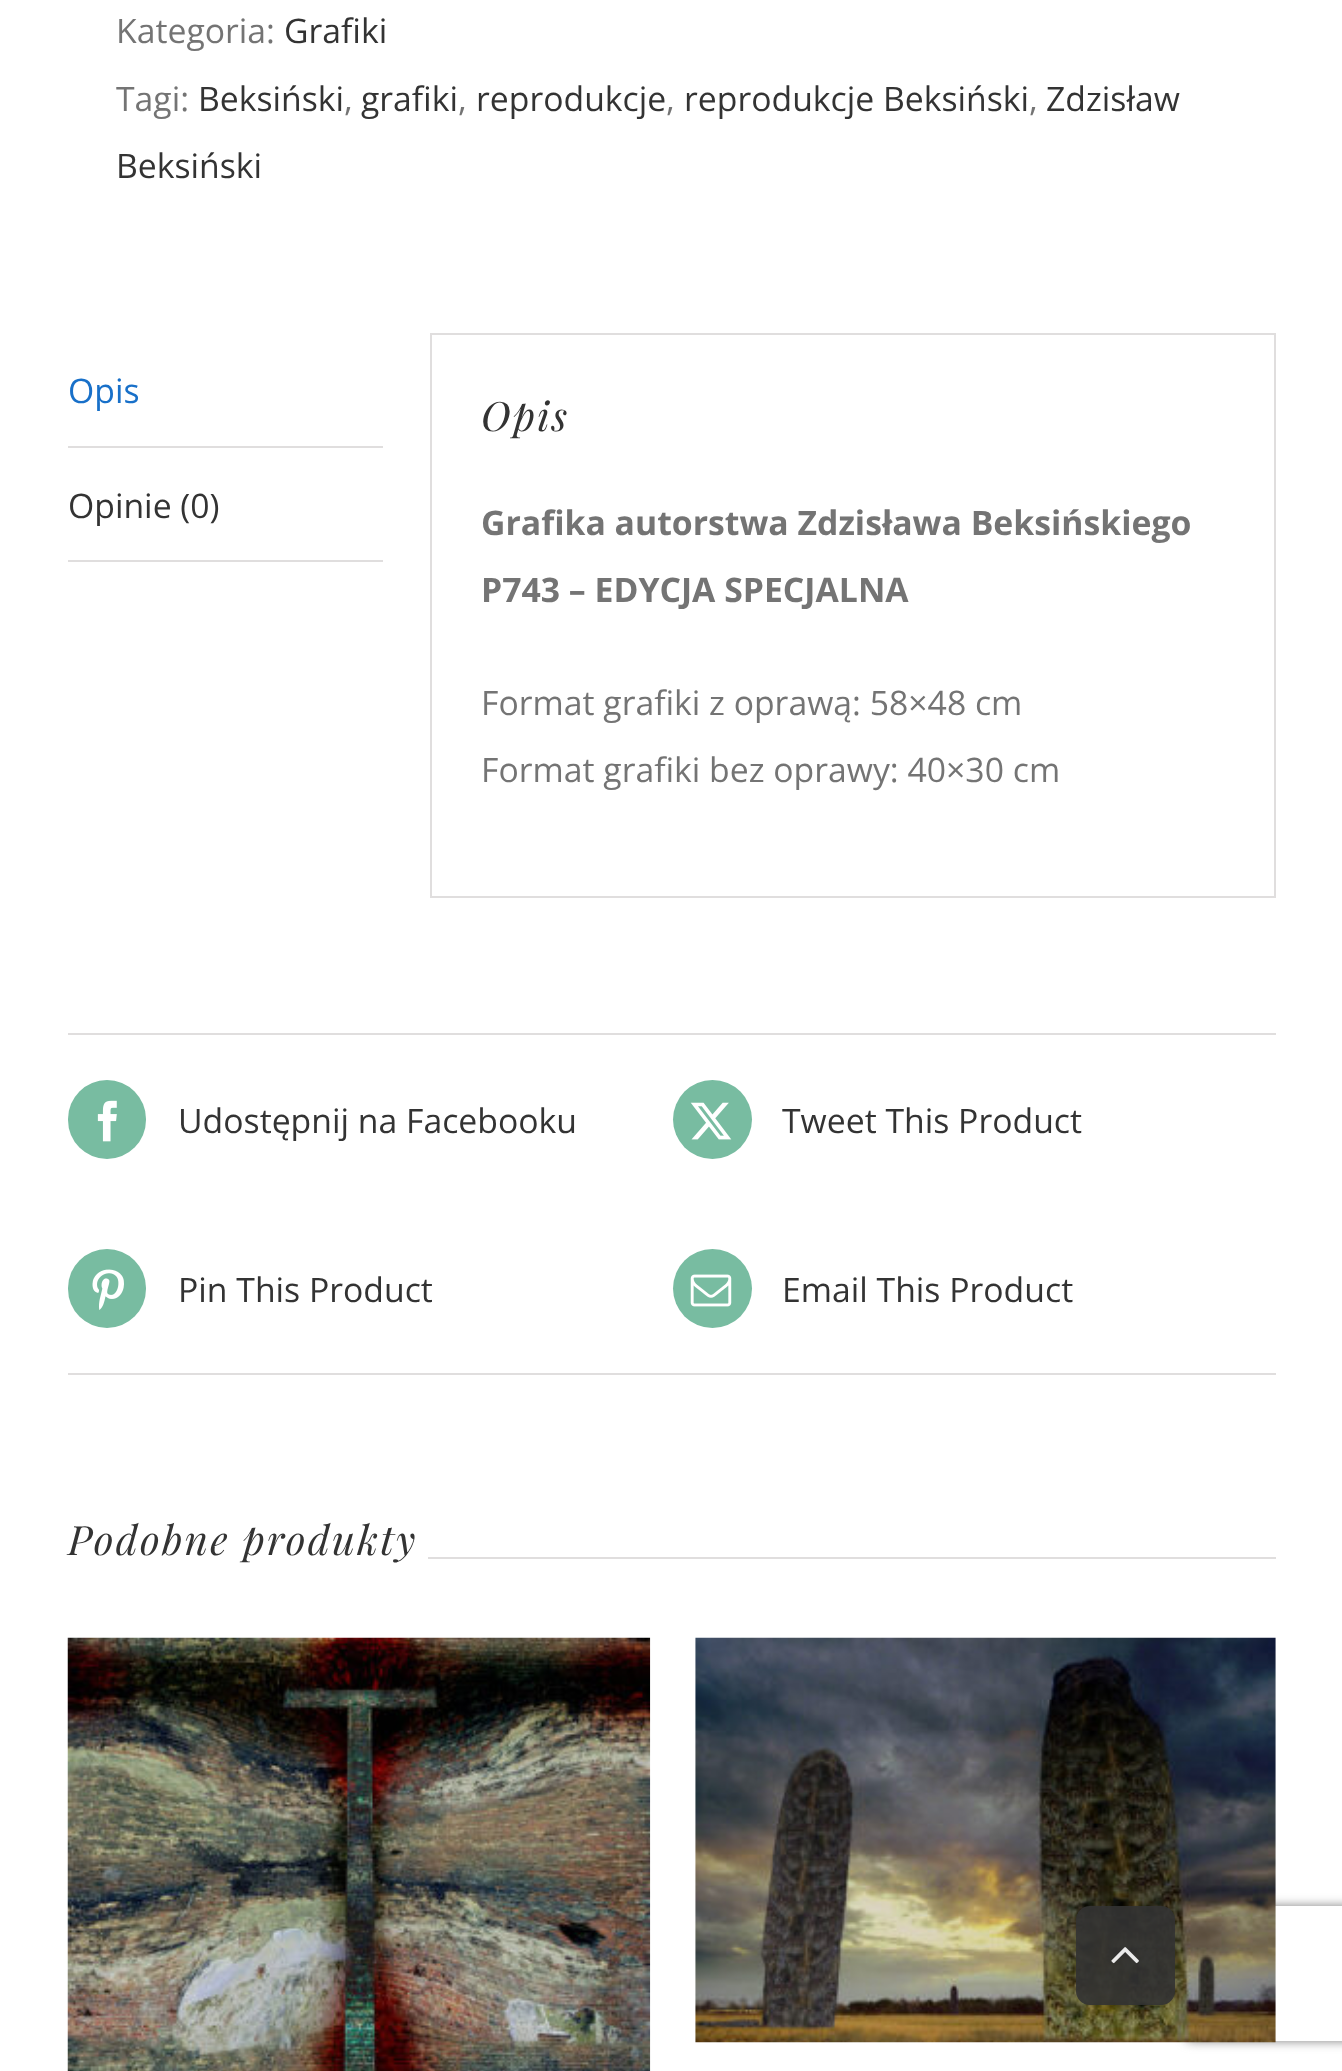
<?xml version="1.0" encoding="UTF-8"?>
<svg xmlns="http://www.w3.org/2000/svg" xmlns:xlink="http://www.w3.org/1999/xlink" width="1342" height="2071">
  <defs>
    <clipPath id="clip1"><path d="M 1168 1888 h 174 v 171 h -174 z m 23 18 h 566 c 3 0 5 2 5 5 v 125 c 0 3 -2 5 -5 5 h -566 c -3 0 -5 -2 -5 -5 v -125 c 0 -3 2 -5 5 -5 z" clip-rule="evenodd" /></clipPath>
  </defs>
  <rect width="100%" height="100%" fill="#ffffff" />
  <rect x="68" y="446" width="315" height="2" fill="#e0dede" />
  <rect x="68" y="560" width="315" height="2" fill="#e0dede" />
  <rect x="431" y="334" width="844" height="563" fill="none" stroke="#e0dede" stroke-width="2" />
  <rect x="68" y="1033" width="1208" height="2" fill="#e0dede" />
  <rect x="68" y="1373" width="1208" height="2" fill="#e0dede" />
  <rect x="68" y="1080" width="78" height="79" rx="39" fill="#78bca1" />
  <image x="97" y="1100" width="20" height="42" xlink:href="image1.png" />
  <circle cx="712.5" cy="1119.5" r="39.5" fill="#78bca1" />
  <image x="690" y="1102" width="42" height="38" xlink:href="image2.png" />
  <rect x="68" y="1249" width="78" height="79" rx="39" fill="#78bca1" />
  <image x="92" y="1269" width="32" height="41" xlink:href="image3.png" />
  <circle cx="712.5" cy="1288.5" r="39.5" fill="#78bca1" />
  <image x="690" y="1274" width="42" height="33" xlink:href="image4.png" />
  <rect x="428" y="1557" width="848" height="2" fill="#e0dede" />
  <image x="67" y="1637" width="584" height="434" xlink:href="image5.png" />
  <g clip-path="url(#clip1)">
    <rect x="1186" y="1906" width="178" height="135" rx="5" fill="#808080" filter="blur(5.5px)" />
  </g>
  <image x="695" y="1637" width="581" height="406" xlink:href="image6.png" />
  <rect x="1076" y="1906" width="99" height="99" rx="14" fill="#333333" fill-opacity="0.9" />
  <image x="1111" y="1947" width="28" height="17" xlink:href="image7.png" />
  <text x="116" y="43" style="font-family: Open Sans; font-size: 33.75px; fill: #747474">Kategoria:</text>
  <text x="284" y="43" style="font-family: Open Sans; font-size: 33.75px; fill: #333333">Grafiki</text>
  <text x="116" y="111" style="font-family: Open Sans; font-size: 33.75px; fill: #747474">Tagi:</text>
  <text x="198" y="111" style="font-family: Open Sans; font-size: 33.75px; fill: #333333">Beksiński</text>
  <text x="344" y="111" style="font-family: Open Sans; font-size: 33.75px; fill: #747474">,</text>
  <text x="361" y="111" style="font-family: Open Sans; font-size: 33.75px; fill: #333333">grafiki</text>
  <text x="458" y="111" style="font-family: Open Sans; font-size: 33.75px; fill: #747474">,</text>
  <text x="476" y="111" style="font-family: Open Sans; font-size: 33.75px; fill: #333333">reprodukcje</text>
  <text x="666" y="111" style="font-family: Open Sans; font-size: 33.75px; fill: #747474">,</text>
  <text x="684" y="111" style="font-family: Open Sans; font-size: 33.75px; fill: #333333">reprodukcje Beksiński</text>
  <text x="1029" y="111" style="font-family: Open Sans; font-size: 33.75px; fill: #747474">,</text>
  <text x="1046" y="111" style="font-family: Open Sans; font-size: 33.75px; fill: #333333">Zdzisław</text>
  <text x="116" y="178" style="font-family: Open Sans; font-size: 33.75px; fill: #333333">Beksiński</text>
  <text x="68" y="403" style="font-family: Open Sans; font-size: 33.75px; fill: #1870c9">Opis</text>
  <text x="68" y="518" style="font-family: Open Sans; font-size: 33.75px; fill: #333333">Opinie (0)</text>
  <text x="481" y="431" style="font-family: Playfair Display; font-size: 40.5px; font-style: italic; letter-spacing: 2.25px; fill: #333333">Opis</text>
  <text x="481" y="535" style="font-family: Open Sans; font-size: 33.75px; font-weight: bold; fill: #747474">Grafika autorstwa Zdzisława Beksińskiego</text>
  <text x="481" y="602" style="font-family: Open Sans; font-size: 33.75px; font-weight: bold; fill: #747474">P743 – EDYCJA SPECJALNA</text>
  <text x="481" y="715" style="font-family: Open Sans; font-size: 33.75px; fill: #747474">Format grafiki z oprawą: 58×48 cm</text>
  <text x="481" y="782" style="font-family: Open Sans; font-size: 33.75px; fill: #747474">Format grafiki bez oprawy: 40×30 cm</text>
  <text x="178" y="1133" style="font-family: Open Sans; font-size: 33.75px; fill: #333333">Udostępnij na Facebooku</text>
  <text x="782" y="1133" style="font-family: Open Sans; font-size: 33.75px; fill: #333333">Tweet This Product</text>
  <text x="178" y="1302" style="font-family: Open Sans; font-size: 33.75px; fill: #333333">Pin This Product</text>
  <text x="782" y="1302" style="font-family: Open Sans; font-size: 33.75px; fill: #333333">Email This Product</text>
  <text x="68" y="1555" style="font-family: Playfair Display; font-size: 40.5px; font-style: italic; letter-spacing: 2.25px; fill: #333333">Podobne produkty</text>
</svg>
